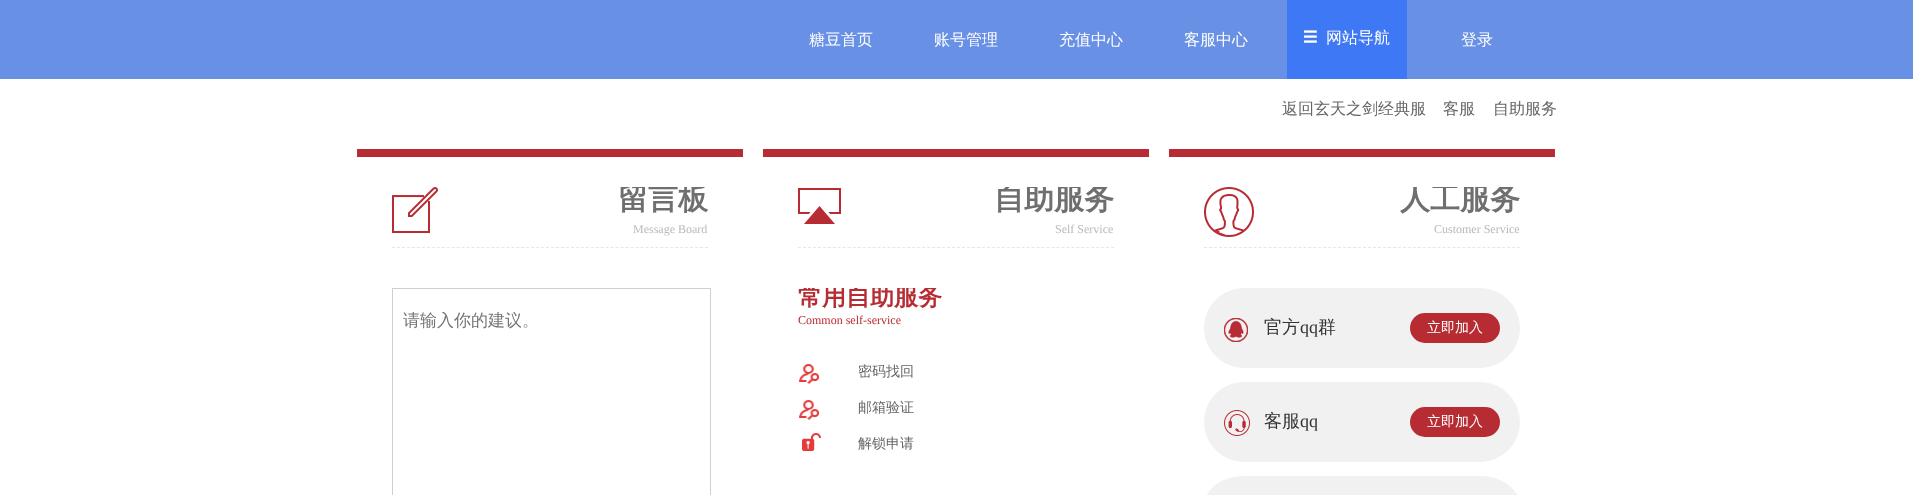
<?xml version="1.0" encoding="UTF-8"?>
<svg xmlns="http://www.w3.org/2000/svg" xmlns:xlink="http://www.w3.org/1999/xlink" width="1913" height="495">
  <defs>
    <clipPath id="clip1"><rect x="618" y="187" width="90" height="54" /></clipPath>
    <clipPath id="clip2"><rect x="994" y="187" width="120" height="54" /></clipPath>
    <clipPath id="clip3"><rect x="798" y="288" width="144" height="60" /></clipPath>
    <clipPath id="clip4"><rect x="1400" y="187" width="120" height="54" /></clipPath>
  </defs>
  <rect width="100%" height="100%" fill="#ffffff" />
  <rect width="1913" height="79" fill="#6890e5" />
  <rect x="1287" width="120" height="79" fill="#3e78f4" />
  <image x="1304" y="30" width="13" height="13" xlink:href="image1.png" />
  <rect x="357" y="149" width="386" height="8" fill="#b72b33" />
  <path d="M 392 247.5 h 316" fill="none" stroke="#e6e6e6" stroke-dasharray="3 1.97" />
  <image x="392" y="187" width="46" height="46" xlink:href="image2.png" />
  <rect x="392.5" y="288.5" width="318" height="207" fill="none" stroke="#d0cfcf" />
  <rect x="763" y="149" width="386" height="8" fill="#b72b33" />
  <path d="M 798 247.5 h 316" fill="none" stroke="#e6e6e6" stroke-dasharray="3 1.97" />
  <image x="798" y="188" width="43" height="36" xlink:href="image3.png" />
  <image x="799" y="364" width="21" height="20" xlink:href="image4.png" />
  <image x="799" y="400" width="21" height="20" xlink:href="image4.png" />
  <image x="802" y="433" width="19" height="18" xlink:href="image5.png" />
  <rect x="1169" y="149" width="386" height="8" fill="#b72b33" />
  <path d="M 1204 247.5 h 316" fill="none" stroke="#e6e6e6" stroke-dasharray="3 1.97" />
  <image x="1204" y="187" width="50" height="50" xlink:href="image6.png" />
  <rect x="1204" y="288" width="316" height="80" rx="40" fill="#f1f1f1" />
  <image x="1224" y="318" width="24" height="24" xlink:href="image7.png" />
  <rect x="1410" y="313" width="90" height="30" rx="15" fill="#b72b33" />
  <rect x="1204" y="382" width="316" height="80" rx="40" fill="#f1f1f1" />
  <image x="1224" y="410" width="26" height="26" xlink:href="image8.png" />
  <rect x="1410" y="407" width="90" height="30" rx="15" fill="#b72b33" />
  <rect x="1204" y="476" width="316" height="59" rx="40" fill="#f1f1f1" />
  <text x="809" y="45" style="font-family: WenQuanYi Zen Hei; font-size: 16px; font-weight: 500; fill: #ffffff">糖豆首页</text>
  <text x="934" y="45" style="font-family: WenQuanYi Zen Hei; font-size: 16px; font-weight: 500; fill: #ffffff">账号管理</text>
  <text x="1059" y="45" style="font-family: WenQuanYi Zen Hei; font-size: 16px; font-weight: 500; fill: #ffffff">充值中心</text>
  <text x="1184" y="45" style="font-family: WenQuanYi Zen Hei; font-size: 16px; font-weight: 500; fill: #ffffff">客服中心</text>
  <text x="1326" y="43" style="font-family: WenQuanYi Zen Hei; font-size: 16px; font-weight: 500; fill: #ffffff">网站导航</text>
  <text x="1461" y="45" style="font-family: WenQuanYi Zen Hei; font-size: 16px; font-weight: 500; fill: #ffffff">登录</text>
  <text x="1282" y="114" style="font-family: WenQuanYi Zen Hei; font-size: 16px; font-weight: 500; fill: #666666">返回玄天之剑经典服</text>
  <text x="1443" y="114" style="font-family: WenQuanYi Zen Hei; font-size: 16px; font-weight: 500; fill: #666666">客服</text>
  <text x="1493" y="114" style="font-family: WenQuanYi Zen Hei; font-size: 16px; font-weight: 500; fill: #666666">自助服务</text>
  <g clip-path="url(#clip1)">
    <text x="618" y="209" style="font-family: WenQuanYi Zen Hei; font-size: 30px; font-weight: bold; fill: #6f6f6f">留言板</text>
  </g>
  <text x="633" y="233" style="font-family: Liberation Serif; font-size: 12px; fill: #b9b9b9">Message Board</text>
  <text x="403" y="326" style="font-family: WenQuanYi Zen Hei; font-size: 17px; font-weight: 500; fill: #757575">请输入你的建议。</text>
  <g clip-path="url(#clip2)">
    <text x="994" y="209" style="font-family: WenQuanYi Zen Hei; font-size: 30px; font-weight: bold; fill: #6f6f6f">自助服务</text>
  </g>
  <text x="1055" y="233" style="font-family: Liberation Serif; font-size: 12px; fill: #b9b9b9">Self Service</text>
  <g clip-path="url(#clip3)">
    <text x="798" y="305" style="font-family: WenQuanYi Zen Hei; font-size: 24px; font-weight: bold; fill: #b72b33">常用自助服务</text>
  </g>
  <text x="798" y="324" style="font-family: Liberation Serif; font-size: 12px; fill: #b72b33">Common self-service</text>
  <text x="858" y="376" style="font-family: WenQuanYi Zen Hei; font-size: 14px; font-weight: 500; fill: #666666">密码找回</text>
  <text x="858" y="412" style="font-family: WenQuanYi Zen Hei; font-size: 14px; font-weight: 500; fill: #666666">邮箱验证</text>
  <text x="858" y="448" style="font-family: WenQuanYi Zen Hei; font-size: 14px; font-weight: 500; fill: #666666">解锁申请</text>
  <g clip-path="url(#clip4)">
    <text x="1400" y="209" style="font-family: WenQuanYi Zen Hei; font-size: 30px; font-weight: bold; fill: #6f6f6f">人工服务</text>
  </g>
  <text x="1434" y="233" style="font-family: Liberation Serif; font-size: 12px; fill: #b9b9b9">Customer Service</text>
  <text x="1264" y="333" style="font-family: WenQuanYi Zen Hei; font-size: 18px; font-weight: 500; fill: #333333">官方</text>
  <text x="1300" y="333" style="font-family: Liberation Serif; font-size: 18px; fill: #333333">qq</text>
  <text x="1318" y="333" style="font-family: WenQuanYi Zen Hei; font-size: 18px; font-weight: 500; fill: #333333">群</text>
  <text x="1427" y="332" style="font-family: WenQuanYi Zen Hei; font-size: 14px; font-weight: 500; fill: #ffffff">立即加入</text>
  <text x="1264" y="427" style="font-family: WenQuanYi Zen Hei; font-size: 18px; font-weight: 500; fill: #333333">客服</text>
  <text x="1300" y="427" style="font-family: Liberation Serif; font-size: 18px; fill: #333333">qq</text>
  <text x="1427" y="426" style="font-family: WenQuanYi Zen Hei; font-size: 14px; font-weight: 500; fill: #ffffff">立即加入</text>
</svg>
